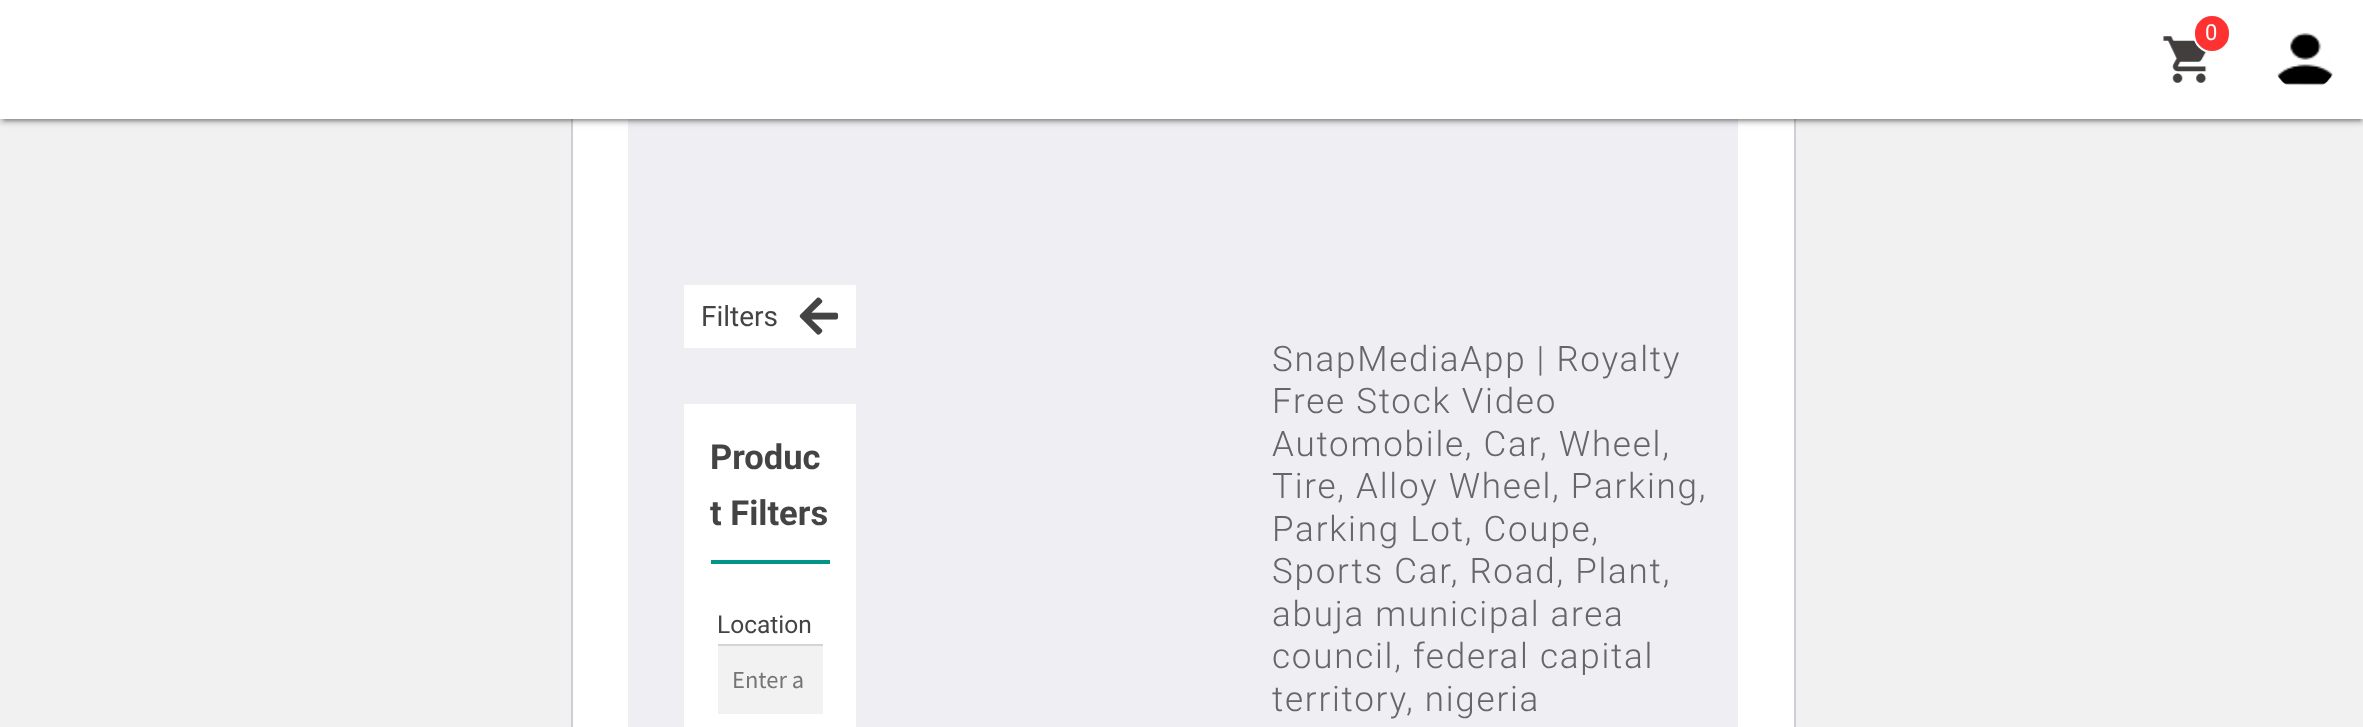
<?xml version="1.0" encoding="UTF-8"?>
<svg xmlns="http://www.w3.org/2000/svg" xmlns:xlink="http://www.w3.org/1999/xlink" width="2363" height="727">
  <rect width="100%" height="100%" fill="#f1f1f1" />
  <rect x="573" y="119" width="1221" height="608" fill="#ffffff" />
  <rect x="572" y="89" width="1223" height="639" fill="none" stroke="#ccd0d4" stroke-width="2" />
  <rect x="628" y="119" width="1110" height="608" fill="#efeef3" />
  <rect x="4" y="9" width="2357" height="112" fill="#000000" fill-opacity="0.2" filter="blur(1px)" />
  <rect y="2" width="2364" height="119" fill="#000000" fill-opacity="0.12" filter="blur(4.5px)" />
  <rect y="4" width="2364" height="119" fill="#000000" fill-opacity="0.14" filter="blur(2px)" />
  <rect width="2363" height="119" fill="#ffffff" />
  <image x="2163" y="36" width="44" height="47" xlink:href="image1.png" />
  <rect x="2194" y="15" width="36" height="37" rx="18" fill="#ff3232" stroke="#ffffff" stroke-width="2" />
  <image x="2277" y="32" width="56" height="54" xlink:href="image2.png" />
  <rect x="684" y="285" width="172" height="63" fill="#ffffff" />
  <image x="799" y="297" width="40" height="38" xlink:href="image3.png" />
  <rect x="684" y="404" width="172" height="323" fill="#ffffff" />
  <rect x="711" y="560" width="119" height="4" fill="#009586" />
  <rect x="718" y="646" width="105" height="68" fill="#f2f2f2" />
  <rect x="718" y="644" width="105" height="2" fill="#d4d4d4" />
  <text x="2205" y="40" style="font-family: Roboto; font-size: 22px; fill: #ffffff">0</text>
  <text x="701" y="326" style="font-family: Roboto; font-size: 28px; fill: #444444">Filters</text>
  <text x="710" y="469" style="font-family: Roboto; font-size: 34.5px; font-weight: bold; fill: #444444">Produc</text>
  <text x="710" y="525" style="font-family: Roboto; font-size: 34.5px; font-weight: bold; fill: #444444">t Filters</text>
  <text x="717" y="633" style="font-family: Roboto; font-size: 24.5px; fill: #444444">Location</text>
  <text x="732" y="688" style="font-family: Source Sans Pro; font-size: 24.5px; fill: #757575">Enter a</text>
  <text x="1272" y="371" style="font-family: Roboto; font-size: 35px; font-weight: 300; letter-spacing: 1.75px; fill: #666666">SnapMediaApp | Royalty</text>
  <text x="1272" y="413" style="font-family: Roboto; font-size: 35px; font-weight: 300; letter-spacing: 1.75px; fill: #666666">Free Stock Video</text>
  <text x="1272" y="456" style="font-family: Roboto; font-size: 35px; font-weight: 300; letter-spacing: 1.75px; fill: #666666">Automobile, Car, Wheel,</text>
  <text x="1272" y="498" style="font-family: Roboto; font-size: 35px; font-weight: 300; letter-spacing: 1.75px; fill: #666666">Tire, Alloy Wheel, Parking,</text>
  <text x="1272" y="541" style="font-family: Roboto; font-size: 35px; font-weight: 300; letter-spacing: 1.75px; fill: #666666">Parking Lot, Coupe,</text>
  <text x="1272" y="583" style="font-family: Roboto; font-size: 35px; font-weight: 300; letter-spacing: 1.75px; fill: #666666">Sports Car, Road, Plant,</text>
  <text x="1272" y="626" style="font-family: Roboto; font-size: 35px; font-weight: 300; letter-spacing: 1.75px; fill: #666666">abuja municipal area</text>
  <text x="1272" y="668" style="font-family: Roboto; font-size: 35px; font-weight: 300; letter-spacing: 1.75px; fill: #666666">council, federal capital</text>
  <text x="1272" y="711" style="font-family: Roboto; font-size: 35px; font-weight: 300; letter-spacing: 1.75px; fill: #666666">territory, nigeria</text>
</svg>
